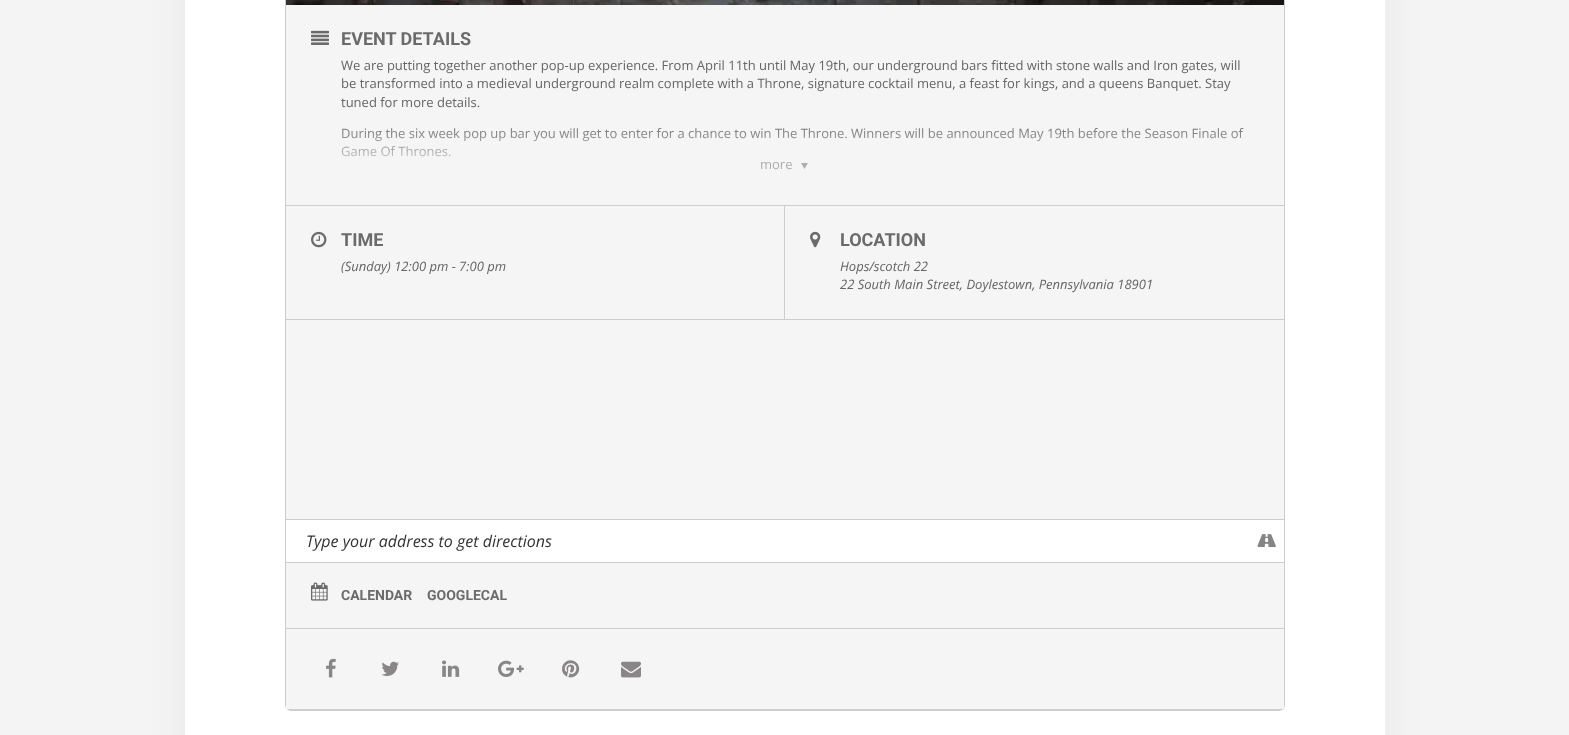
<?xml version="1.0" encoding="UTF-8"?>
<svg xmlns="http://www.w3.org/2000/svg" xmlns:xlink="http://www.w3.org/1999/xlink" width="1569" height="735">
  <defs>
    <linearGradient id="g1" gradientUnits="userSpaceOnUse" x1="785" y1="120" x2="785" y2="180"><stop offset="0" stop-color="#f5f5f5" stop-opacity="0" /><stop offset="0.01" stop-color="#f5f5f5" stop-opacity="0.01" /><stop offset="1" stop-color="#f5f5f5" /></linearGradient>
  </defs>
  <rect width="100%" height="100%" fill="#f4f4f4" />
  <rect x="185" y="-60" width="1200" height="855" fill="#000000" fill-opacity="0.05" filter="blur(20px)" />
  <rect x="185" width="1200" height="735" fill="#ffffff" />
  <path d="M 1283 -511 c 1 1 1 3 1 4 v 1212 c 0 3 -2 6 -5 6 c 3 0 6 -3 6 -6 v -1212 c 0 -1 -1 -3 -2 -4 z" fill="#cdcdcd" />
  <path d="M 285 -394 v 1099 c 0 3 3 6 6 6 h 988 c 3 0 5 -3 5 -6 v -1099 z" fill="#f5f5f5" />
  <path d="M 291 711 h 988 l 3 -1 h -994 z" fill="#cdcdcd" />
  <path d="M 285 -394 v 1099 l 1 3 v -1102 z" fill="#cdcdcd" />
  <image x="286" y="0" width="998" height="5" xlink:href="image1.png" />
  <rect x="286" y="205" width="998" height="1" fill="#cdcdcd" />
  <image x="311" y="30" width="18" height="15" xlink:href="image2.png" />
  <image x="801" y="163" width="7" height="6" xlink:href="image3.png" />
  <rect x="286" y="319" width="998" height="1" fill="#cdcdcd" />
  <rect x="784" y="206" width="1" height="113" fill="#cdcdcd" />
  <image x="311" y="231" width="16" height="17" xlink:href="image4.png" />
  <image x="810" y="231" width="11" height="17" xlink:href="image5.png" />
  <rect x="286" y="519" width="998" height="1" fill="#cdcdcd" />
  <rect x="286" y="520" width="998" height="42" fill="#ffffff" />
  <rect x="286" y="562" width="998" height="1" fill="#cdcdcd" />
  <image x="1257" y="534" width="19" height="13" xlink:href="image6.png" />
  <rect x="286" y="628" width="998" height="1" fill="#cdcdcd" />
  <image x="311" y="582" width="17" height="19" xlink:href="image7.png" />
  <path d="M 286 629 h 998 v 78 l -2 3 h -994 l -2 -2 z" fill="#f5f5f5" />
  <path d="M 288 710 l -1 -1 h 996 l -1 1 z" fill="#cdcdcd" />
  <image x="326" y="658" width="10" height="20" xlink:href="image8.png" />
  <image x="381" y="661" width="18" height="15" xlink:href="image9.png" />
  <image x="442" y="660" width="18" height="17" xlink:href="image10.png" />
  <image x="498" y="660" width="26" height="17" xlink:href="image11.png" />
  <image x="562" y="660" width="18" height="18" xlink:href="image12.png" />
  <image x="621" y="661" width="20" height="17" xlink:href="image13.png" />
  <text x="341" y="45" style="font-family: Roboto; font-size: 18px; font-weight: bold; fill: #6b6b6b">EVENT DETAILS</text>
  <text x="341" y="70" style="font-family: Open Sans; font-size: 13px; fill: #656565">We are putting together another pop-up experience. From April 11th until May 19th, our underground bars fitted with stone walls and Iron gates, will</text>
  <text x="341" y="88" style="font-family: Open Sans; font-size: 13px; fill: #656565">be transformed into a medieval underground realm complete with a Throne, signature cocktail menu, a feast for kings, and a queens Banquet. Stay</text>
  <text x="341" y="107" style="font-family: Open Sans; font-size: 13px; fill: #656565">tuned for more details.</text>
  <text x="341" y="138" style="font-family: Open Sans; font-size: 13px; fill: #656565">During the six week pop up bar you will get to enter for a chance to win The Throne. Winners will be announced May 19th before the Season Finale of</text>
  <text x="341" y="156" style="font-family: Open Sans; font-size: 13px; fill: #656565">Game Of Thrones.</text>
  <rect x="341" y="128" width="902" height="29" fill="url(#g1)" />
  <text x="760" y="169" style="font-family: Open Sans; font-size: 13px; fill: #adadad">more</text>
  <text x="341" y="246" style="font-family: Roboto; font-size: 18px; font-weight: bold; fill: #6b6b6b">TIME</text>
  <text x="341" y="271" style="font-family: Open Sans; font-size: 13px; font-style: italic; fill: #656565">(Sunday) 12:00 pm - 7:00 pm</text>
  <text x="840" y="246" style="font-family: Roboto; font-size: 18px; font-weight: bold; fill: #6b6b6b">LOCATION</text>
  <text x="840" y="271" style="font-family: Open Sans; font-size: 13px; font-style: italic; fill: #656565">Hops/scotch 22</text>
  <text x="840" y="289" style="font-family: Open Sans; font-size: 13px; font-style: italic; fill: #656565">22 South Main Street, Doylestown, Pennsylvania 18901</text>
  <text x="306" y="547" style="font-family: Open Sans; font-size: 16px; font-style: italic; fill: #333333">Type your address to get directions</text>
  <text x="341" y="600" style="font-family: Roboto; font-size: 14px; font-weight: bold; fill: #6b6b6b">CALENDAR</text>
  <text x="427" y="600" style="font-family: Roboto; font-size: 14px; font-weight: bold; fill: #6b6b6b">GOOGLECAL</text>
</svg>
